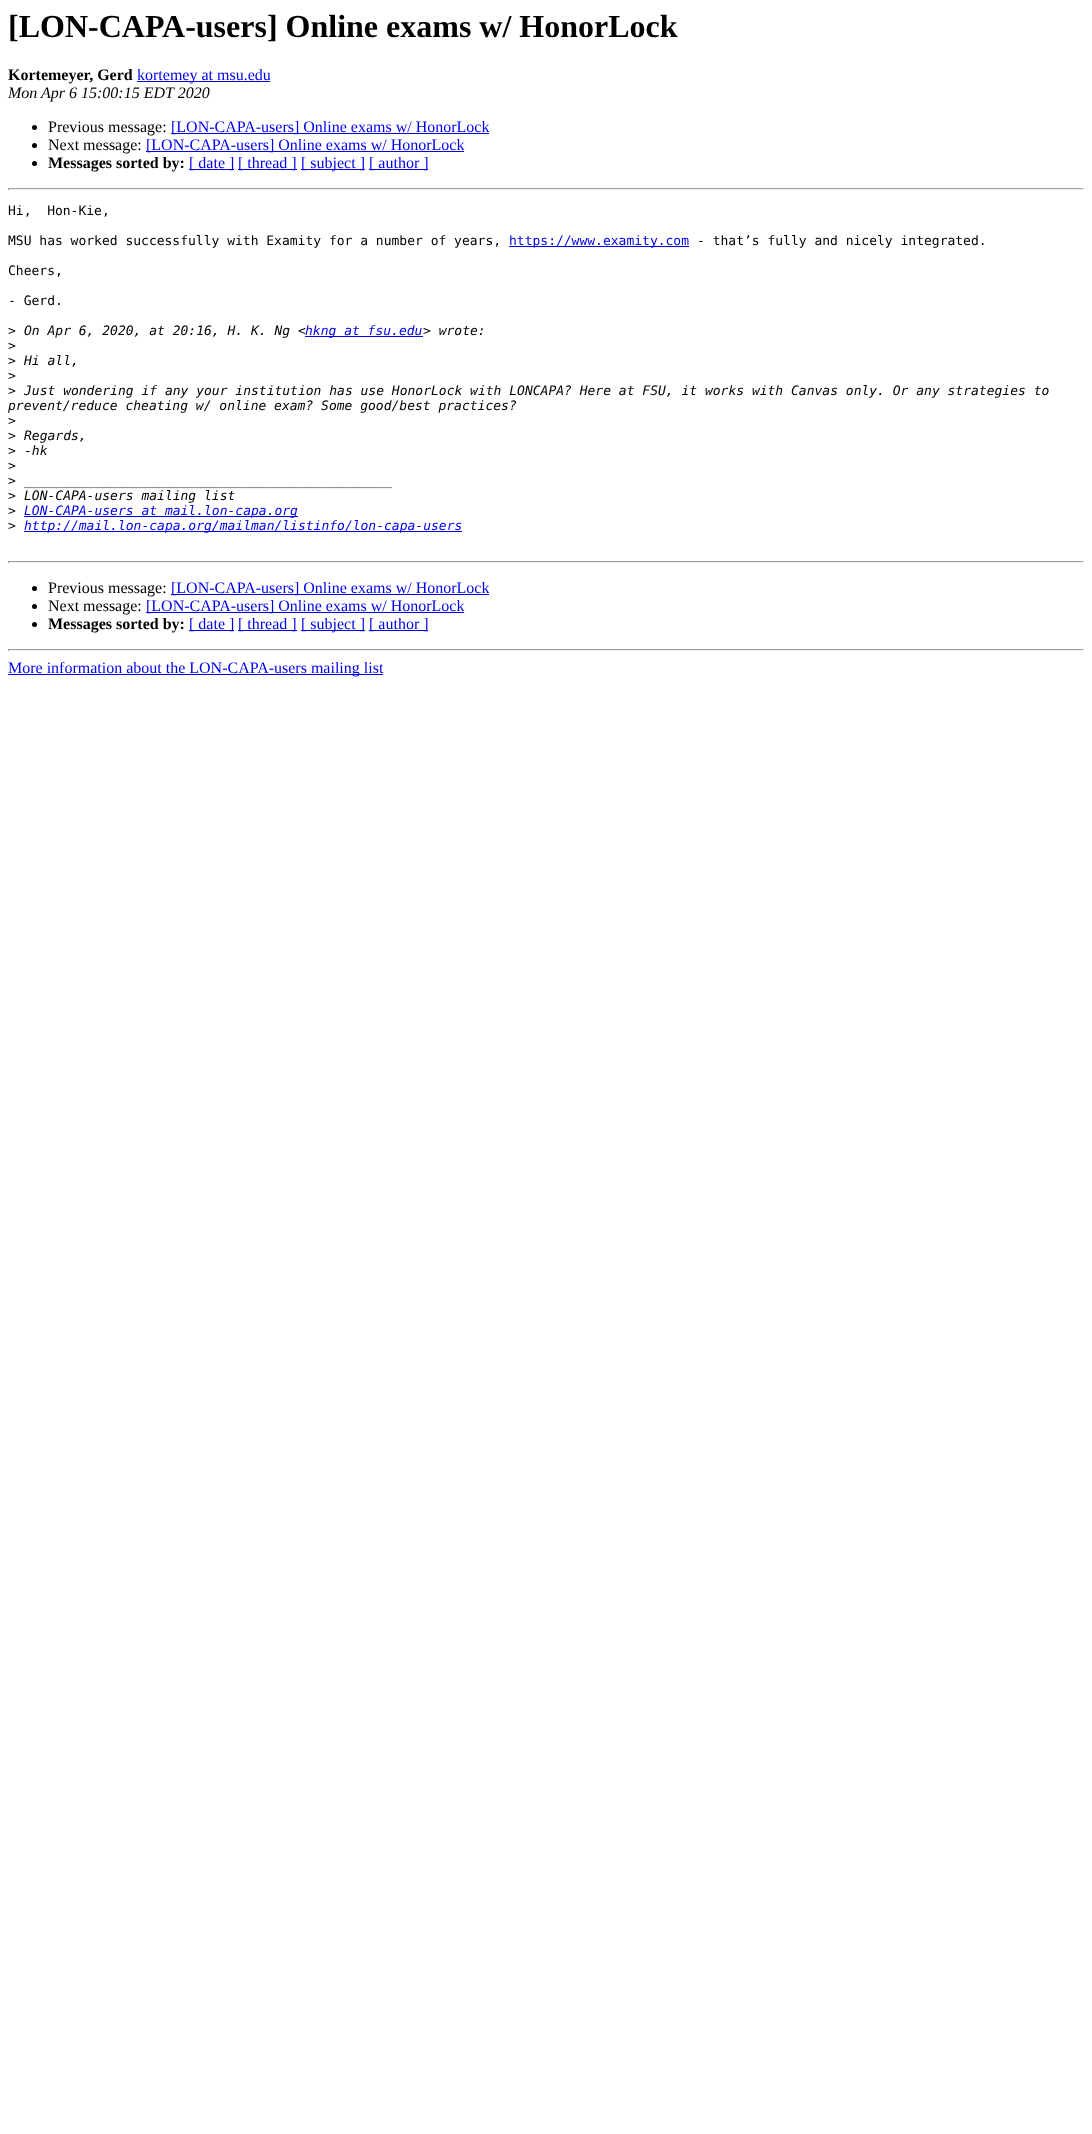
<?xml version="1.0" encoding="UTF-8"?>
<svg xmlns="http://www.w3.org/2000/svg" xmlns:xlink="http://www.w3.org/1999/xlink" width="1092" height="2134">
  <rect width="100%" height="100%" fill="#ffffff" />
  <rect x="137" y="81" width="133" height="1" fill="#0000ee" />
  <circle cx="34.5" cy="127.5" r="2.5" fill="#000000" />
  <rect x="171" y="133" width="318" height="1" fill="#0000ee" />
  <circle cx="34.5" cy="145.5" r="2.5" fill="#000000" />
  <rect x="146" y="151" width="318" height="1" fill="#0000ee" />
  <circle cx="34.5" cy="163.5" r="2.5" fill="#000000" />
  <rect x="189" y="169" width="45" height="1" fill="#0000ee" />
  <rect x="238" y="169" width="59" height="1" fill="#0000ee" />
  <rect x="301" y="169" width="64" height="1" fill="#0000ee" />
  <rect x="369" y="169" width="59" height="1" fill="#0000ee" />
  <rect x="8" y="188" width="1076" height="1" fill="#9f9f9f" />
  <rect x="1083" y="188" width="1" height="2" fill="#eeeeee" />
  <rect x="8" y="189" width="1076" height="1" fill="#eeeeee" />
  <rect x="8" y="188" width="1" height="2" fill="#9f9f9f" />
  <rect x="509" y="246" width="180" height="1" fill="#0000ee" />
  <rect x="305" y="336" width="118" height="1" fill="#0000ee" />
  <rect x="24" y="516" width="274" height="1" fill="#0000ee" />
  <rect x="24" y="531" width="438" height="1" fill="#0000ee" />
  <rect x="8" y="561" width="1076" height="1" fill="#9f9f9f" />
  <rect x="1083" y="561" width="1" height="2" fill="#eeeeee" />
  <rect x="8" y="562" width="1076" height="1" fill="#eeeeee" />
  <rect x="8" y="561" width="1" height="2" fill="#9f9f9f" />
  <circle cx="34.5" cy="588.5" r="2.5" fill="#000000" />
  <rect x="171" y="594" width="318" height="1" fill="#0000ee" />
  <circle cx="34.5" cy="606.5" r="2.5" fill="#000000" />
  <rect x="146" y="612" width="318" height="1" fill="#0000ee" />
  <circle cx="34.5" cy="624.5" r="2.5" fill="#000000" />
  <rect x="189" y="630" width="45" height="1" fill="#0000ee" />
  <rect x="238" y="630" width="59" height="1" fill="#0000ee" />
  <rect x="301" y="630" width="64" height="1" fill="#0000ee" />
  <rect x="369" y="630" width="59" height="1" fill="#0000ee" />
  <rect x="8" y="649" width="1076" height="1" fill="#9f9f9f" />
  <rect x="1083" y="649" width="1" height="2" fill="#eeeeee" />
  <rect x="8" y="650" width="1076" height="1" fill="#eeeeee" />
  <rect x="8" y="649" width="1" height="2" fill="#9f9f9f" />
  <rect x="8" y="674" width="375" height="1" fill="#0000ee" />
  <text x="8" y="37" style="font-family: Liberation Serif; font-size: 32px; font-weight: bold; fill: #000000">[LON-CAPA-users] Online exams w/ HonorLock</text>
  <text x="8" y="80" style="font-family: Liberation Serif; font-size: 16px; font-weight: bold; fill: #000000">Kortemeyer, Gerd</text>
  <text x="137" y="80" style="font-family: Liberation Serif; font-size: 16px; fill: #0000ee">kortemey at msu.edu</text>
  <text x="8" y="98" style="font-family: Liberation Serif; font-size: 16px; font-style: italic; fill: #000000">Mon Apr 6 15:00:15 EDT 2020</text>
  <text x="48" y="132" style="font-family: Liberation Serif; font-size: 16px; fill: #000000">Previous message:</text>
  <text x="171" y="132" style="font-family: Liberation Serif; font-size: 16px; fill: #0000ee">[LON-CAPA-users] Online exams w/ HonorLock</text>
  <text x="48" y="150" style="font-family: Liberation Serif; font-size: 16px; fill: #000000">Next message:</text>
  <text x="146" y="150" style="font-family: Liberation Serif; font-size: 16px; fill: #0000ee">[LON-CAPA-users] Online exams w/ HonorLock</text>
  <text x="48" y="168" style="font-family: Liberation Serif; font-size: 16px; font-weight: bold; fill: #000000">Messages sorted by:</text>
  <text x="189" y="168" style="font-family: Liberation Serif; font-size: 16px; fill: #0000ee">[ date ]</text>
  <text x="238" y="168" style="font-family: Liberation Serif; font-size: 16px; fill: #0000ee">[ thread ]</text>
  <text x="301" y="168" style="font-family: Liberation Serif; font-size: 16px; fill: #0000ee">[ subject ]</text>
  <text x="369" y="168" style="font-family: Liberation Serif; font-size: 16px; fill: #0000ee">[ author ]</text>
  <text x="8" y="215" style="font-family: DejaVu Sans Mono; font-size: 13px; fill: #000000" xml:space="preserve">Hi,  Hon-Kie,</text>
  <text x="8" y="245" style="font-family: DejaVu Sans Mono; font-size: 13px; fill: #000000">MSU has worked successfully with Examity for a number of years,</text>
  <text x="509" y="245" style="font-family: DejaVu Sans Mono; font-size: 13px; fill: #0000ee">https://www.examity.com</text>
  <text x="697" y="245" style="font-family: DejaVu Sans Mono; font-size: 13px; fill: #000000">- that’s fully and nicely integrated.</text>
  <text x="8" y="275" style="font-family: DejaVu Sans Mono; font-size: 13px; fill: #000000">Cheers,</text>
  <text x="8" y="305" style="font-family: DejaVu Sans Mono; font-size: 13px; fill: #000000">- Gerd.</text>
  <text x="8" y="335" style="font-family: DejaVu Sans Mono; font-size: 13px; fill: #000000">&gt;</text>
  <text x="24" y="335" style="font-family: DejaVu Sans Mono; font-size: 13px; font-style: italic; fill: #000000">On Apr 6, 2020, at 20:16, H. K. Ng &lt;</text>
  <text x="305" y="335" style="font-family: DejaVu Sans Mono; font-size: 13px; font-style: italic; fill: #0000ee">hkng at fsu.edu</text>
  <text x="423" y="335" style="font-family: DejaVu Sans Mono; font-size: 13px; font-style: italic; fill: #000000">&gt; wrote:</text>
  <text x="8" y="350" style="font-family: DejaVu Sans Mono; font-size: 13px; fill: #000000">&gt;</text>
  <text x="8" y="365" style="font-family: DejaVu Sans Mono; font-size: 13px; fill: #000000">&gt;</text>
  <text x="24" y="365" style="font-family: DejaVu Sans Mono; font-size: 13px; font-style: italic; fill: #000000">Hi all,</text>
  <text x="8" y="380" style="font-family: DejaVu Sans Mono; font-size: 13px; fill: #000000">&gt;</text>
  <text x="8" y="395" style="font-family: DejaVu Sans Mono; font-size: 13px; fill: #000000">&gt;</text>
  <text x="24" y="395" style="font-family: DejaVu Sans Mono; font-size: 13px; font-style: italic; fill: #000000">Just wondering if any your institution has use HonorLock with LONCAPA? Here at FSU, it works with Canvas only. Or any strategies to</text>
  <text x="8" y="410" style="font-family: DejaVu Sans Mono; font-size: 13px; font-style: italic; fill: #000000">prevent/reduce cheating w/ online exam? Some good/best practices?</text>
  <text x="8" y="425" style="font-family: DejaVu Sans Mono; font-size: 13px; fill: #000000">&gt;</text>
  <text x="8" y="440" style="font-family: DejaVu Sans Mono; font-size: 13px; fill: #000000">&gt;</text>
  <text x="24" y="440" style="font-family: DejaVu Sans Mono; font-size: 13px; font-style: italic; fill: #000000">Regards,</text>
  <text x="8" y="455" style="font-family: DejaVu Sans Mono; font-size: 13px; fill: #000000">&gt;</text>
  <text x="24" y="455" style="font-family: DejaVu Sans Mono; font-size: 13px; font-style: italic; fill: #000000">-hk</text>
  <text x="8" y="470" style="font-family: DejaVu Sans Mono; font-size: 13px; fill: #000000">&gt;</text>
  <text x="8" y="485" style="font-family: DejaVu Sans Mono; font-size: 13px; fill: #000000">&gt;</text>
  <text x="24" y="485" style="font-family: DejaVu Sans Mono; font-size: 13px; font-style: italic; fill: #000000">_______________________________________________</text>
  <text x="8" y="500" style="font-family: DejaVu Sans Mono; font-size: 13px; fill: #000000">&gt;</text>
  <text x="24" y="500" style="font-family: DejaVu Sans Mono; font-size: 13px; font-style: italic; fill: #000000">LON-CAPA-users mailing list</text>
  <text x="8" y="515" style="font-family: DejaVu Sans Mono; font-size: 13px; fill: #000000">&gt;</text>
  <text x="24" y="515" style="font-family: DejaVu Sans Mono; font-size: 13px; font-style: italic; fill: #0000ee">LON-CAPA-users at mail.lon-capa.org</text>
  <text x="8" y="530" style="font-family: DejaVu Sans Mono; font-size: 13px; fill: #000000">&gt;</text>
  <text x="24" y="530" style="font-family: DejaVu Sans Mono; font-size: 13px; font-style: italic; fill: #0000ee">http://mail.lon-capa.org/mailman/listinfo/lon-capa-users</text>
  <text x="48" y="593" style="font-family: Liberation Serif; font-size: 16px; fill: #000000">Previous message:</text>
  <text x="171" y="593" style="font-family: Liberation Serif; font-size: 16px; fill: #0000ee">[LON-CAPA-users] Online exams w/ HonorLock</text>
  <text x="48" y="611" style="font-family: Liberation Serif; font-size: 16px; fill: #000000">Next message:</text>
  <text x="146" y="611" style="font-family: Liberation Serif; font-size: 16px; fill: #0000ee">[LON-CAPA-users] Online exams w/ HonorLock</text>
  <text x="48" y="629" style="font-family: Liberation Serif; font-size: 16px; font-weight: bold; fill: #000000">Messages sorted by:</text>
  <text x="189" y="629" style="font-family: Liberation Serif; font-size: 16px; fill: #0000ee">[ date ]</text>
  <text x="238" y="629" style="font-family: Liberation Serif; font-size: 16px; fill: #0000ee">[ thread ]</text>
  <text x="301" y="629" style="font-family: Liberation Serif; font-size: 16px; fill: #0000ee">[ subject ]</text>
  <text x="369" y="629" style="font-family: Liberation Serif; font-size: 16px; fill: #0000ee">[ author ]</text>
  <text x="8" y="673" style="font-family: Liberation Serif; font-size: 16px; fill: #0000ee">More information about the LON-CAPA-users mailing list</text>
</svg>
